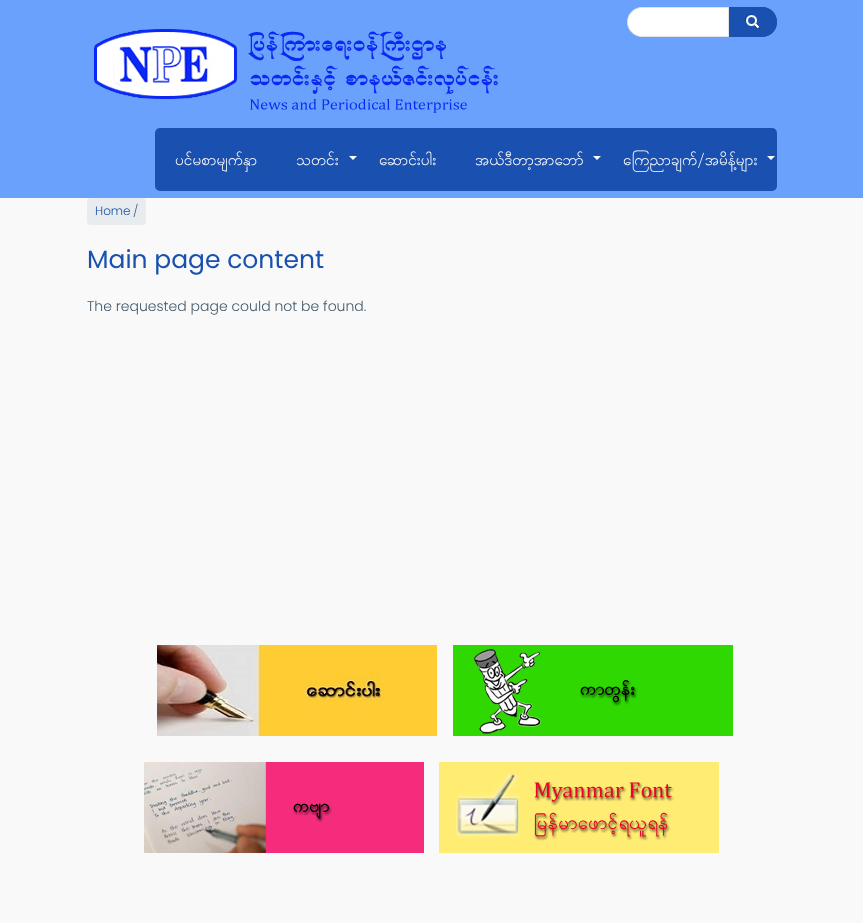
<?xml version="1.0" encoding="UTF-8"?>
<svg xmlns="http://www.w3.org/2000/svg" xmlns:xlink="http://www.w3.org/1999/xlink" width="863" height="923">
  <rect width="100%" height="100%" fill="#f9f9f9" />
  <rect width="863" height="198" fill="#69a1fd" />
  <path d="M 642 7.5 h 86.5 v 29 h -86.5 c -8 0 -14.5 -6.5 -14.5 -14.5 c 0 -8 6.5 -14.5 14.5 -14.5 z" fill="#ffffff" stroke="#e3e3e3" />
  <path d="M 729 7 h 33 c 8.5 0 15 6.5 15 15 c 0 8.5 -6.5 15 -15 15 h -33 z" fill="#1a51b1" />
  <image x="745" y="14" width="14" height="14" xlink:href="image1.png" />
  <path d="M 730.5 8.5 h 31.5 c 7.5 0 13.5 6 13.5 13.5 c 0 7.5 -6 13.5 -13.5 13.5 h -31.5 z" fill="none" stroke="#1a51b1" stroke-width="3" />
  <image x="94" y="29" width="404" height="84" xlink:href="image2.png" />
  <rect x="155" y="128" width="622" height="63" rx="5" fill="#1a51b1" />
  <path d="M 349 156 h 8 l -4 4 z" fill="#ffffff" />
  <path d="M 593 156 h 8 l -4 4 z" fill="#ffffff" />
  <path d="M 767 156 h 8 l -4 4 z" fill="#ffffff" />
  <rect x="87" y="198" width="59" height="27" rx="4" fill="#e9ecef" />
  <image x="157" y="645" width="280" height="91" xlink:href="image3.png" />
  <image x="453" y="645" width="280" height="91" xlink:href="image4.png" />
  <image x="144" y="762" width="280" height="91" xlink:href="image5.png" />
  <image x="439" y="762" width="280" height="91" xlink:href="image6.png" />
  <text x="175" y="165" style="font-family: Padauk; font-size: 15.5px; fill: #ffffff">ပင်မစာမျက်နှာ</text>
  <text x="296" y="165" style="font-family: Padauk; font-size: 15.5px; fill: #ffffff">သတင်း</text>
  <text x="379" y="165" style="font-family: Padauk; font-size: 15.5px; fill: #ffffff">ဆောင်းပါး</text>
  <text x="475" y="165" style="font-family: Padauk; font-size: 15.5px; fill: #ffffff">အယ်ဒီတာ့အာဘော်</text>
  <text x="623" y="165" style="font-family: Padauk; font-size: 15.5px; fill: #ffffff">ကြေညာချက်/အမိန့်များ</text>
  <text x="95" y="215" style="font-family: Poppins; font-size: 12px; font-weight: 300; fill: #1a51b1">Home</text>
  <text x="133" y="215" style="font-family: Poppins; font-size: 12px; font-weight: 300; fill: #435a6b">/</text>
  <text x="87" y="268" style="font-family: Poppins; font-size: 25px; fill: #1a51b1">Main page content</text>
  <text x="87" y="311" style="font-family: Poppins; font-size: 14px; font-weight: 300; fill: #435a6b">The requested page could not be found.</text>
</svg>
